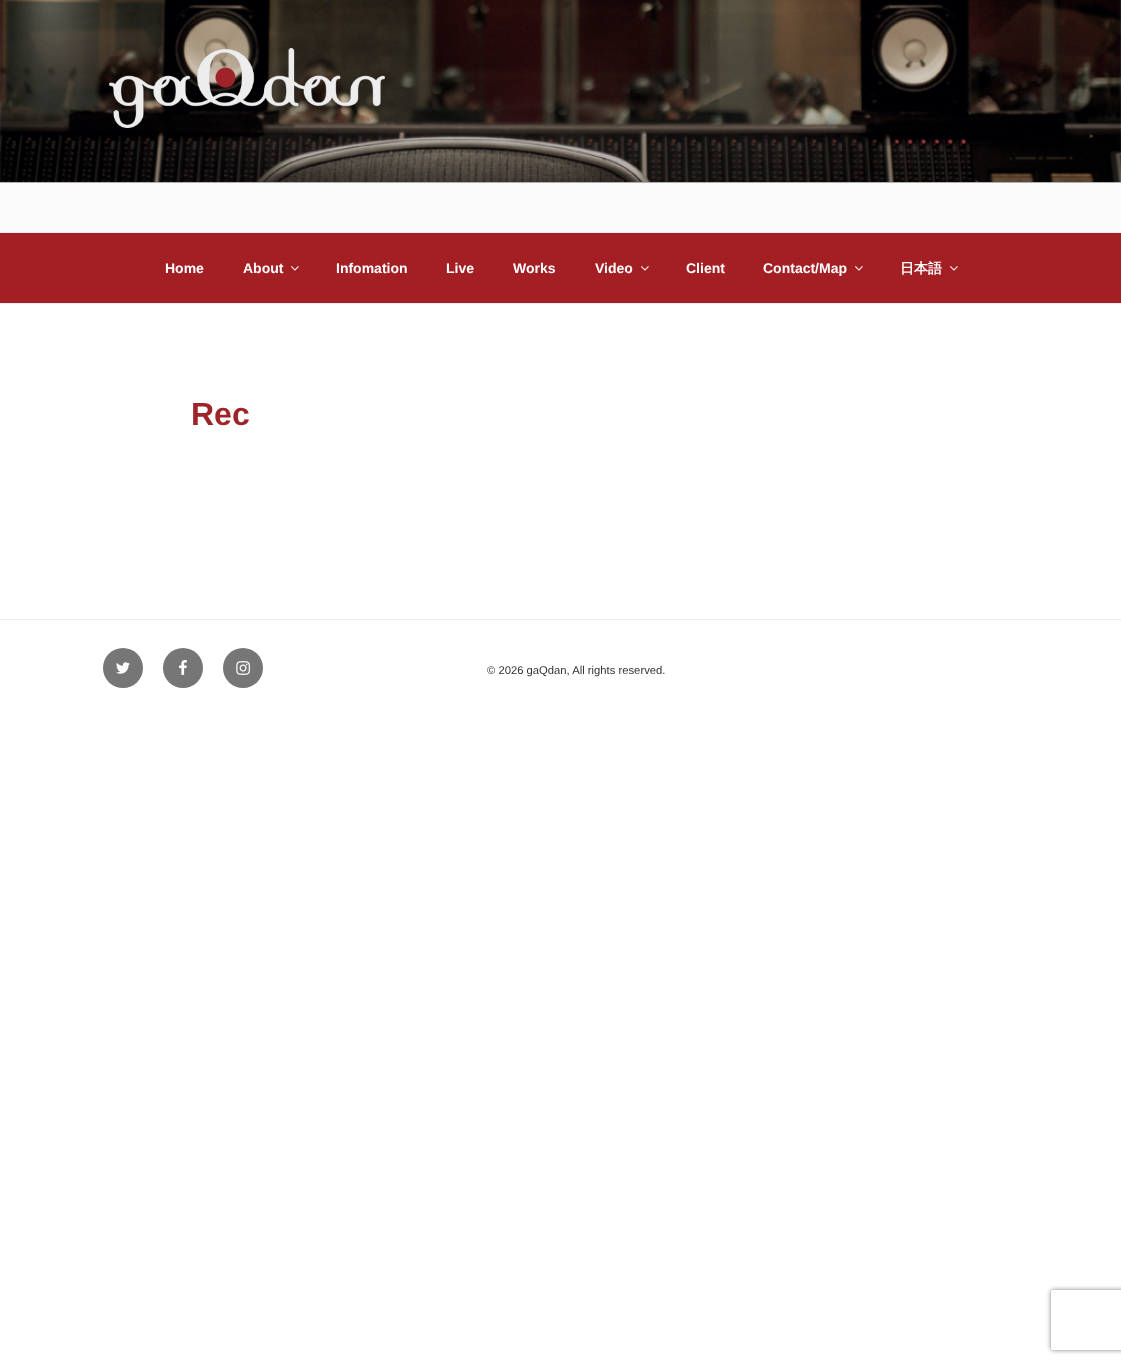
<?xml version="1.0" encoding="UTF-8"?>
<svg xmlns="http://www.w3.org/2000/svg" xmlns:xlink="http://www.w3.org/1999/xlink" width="1121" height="1364">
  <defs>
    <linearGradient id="g1" gradientUnits="userSpaceOnUse" x1="561" y1="0" x2="561" y2="183"><stop offset="0" stop-color="#000000" stop-opacity="0" /><stop offset="0.75" stop-color="#000000" stop-opacity="0.3" /><stop offset="1" stop-color="#000000" stop-opacity="0.3" /></linearGradient>
    <clipPath id="clip1"><path d="M 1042 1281 h 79 v 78 h -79 z m 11 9 h 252 c 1 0 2 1 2 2 v 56 c 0 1 -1 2 -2 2 h -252 c -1 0 -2 -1 -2 -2 v -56 c 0 -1 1 -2 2 -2 z" clip-rule="evenodd" /></clipPath>
  </defs>
  <rect width="100%" height="100%" fill="#ffffff" />
  <rect width="1121" height="232" fill="#fafafa" />
  <image x="0" y="0" width="1121" height="182" xlink:href="image1.png" />
  <rect y="12" width="1121" height="171" fill="url(#g1)" />
  <image x="109" y="48" width="276" height="80" xlink:href="image2.png" />
  <rect y="233" width="1121" height="70" fill="#a41f24" />
  <rect y="232" width="1121" height="1" fill="#eeeeee" />
  <rect y="303" width="1121" height="1" fill="#eeeeee" />
  <image x="291" y="266" width="8" height="5" xlink:href="image3.png" />
  <image x="641" y="266" width="8" height="5" xlink:href="image3.png" />
  <image x="855" y="266" width="8" height="5" xlink:href="image3.png" />
  <image x="950" y="266" width="8" height="5" xlink:href="image3.png" />
  <rect y="619" width="1121" height="1" fill="#eeeeee" />
  <circle cx="123" cy="668" r="20" fill="#767676" />
  <image x="116" y="662" width="14" height="12" xlink:href="image4.png" />
  <circle cx="183" cy="668" r="20" fill="#767676" />
  <image x="179" y="660" width="8" height="15" xlink:href="image5.png" />
  <circle cx="243" cy="668" r="20" fill="#767676" />
  <image x="236" y="661" width="14" height="14" xlink:href="image6.png" />
  <g clip-path="url(#clip1)">
    <rect x="1051" y="1290" width="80" height="60" rx="2" fill="#808080" filter="blur(2.5px)" />
  </g>
  <text x="165" y="273" style="font-family: Liberation Sans; font-size: 14px; font-weight: bold; fill: #ffffff">Home</text>
  <text x="243" y="273" style="font-family: Liberation Sans; font-size: 14px; font-weight: bold; fill: #ffffff">About</text>
  <text x="336" y="273" style="font-family: Liberation Sans; font-size: 14px; font-weight: bold; fill: #ffffff">Infomation</text>
  <text x="446" y="273" style="font-family: Liberation Sans; font-size: 14px; font-weight: bold; fill: #ffffff">Live</text>
  <text x="513" y="273" style="font-family: Liberation Sans; font-size: 14px; font-weight: bold; fill: #ffffff">Works</text>
  <text x="595" y="273" style="font-family: Liberation Sans; font-size: 14px; font-weight: bold; fill: #ffffff">Video</text>
  <text x="686" y="273" style="font-family: Liberation Sans; font-size: 14px; font-weight: bold; fill: #ffffff">Client</text>
  <text x="763" y="273" style="font-family: Liberation Sans; font-size: 14px; font-weight: bold; fill: #ffffff">Contact/Map</text>
  <text x="900" y="273" style="font-family: WenQuanYi Zen Hei; font-size: 14px; font-weight: bold; fill: #ffffff">日本語</text>
  <text x="191" y="425" style="font-family: Liberation Sans; font-size: 32px; font-weight: bold; fill: #9f242a">Rec</text>
  <text x="487" y="674" style="font-family: Liberation Sans; font-size: 11.25px; fill: #333333">© 2026 gaQdan, All rights reserved.</text>
</svg>
